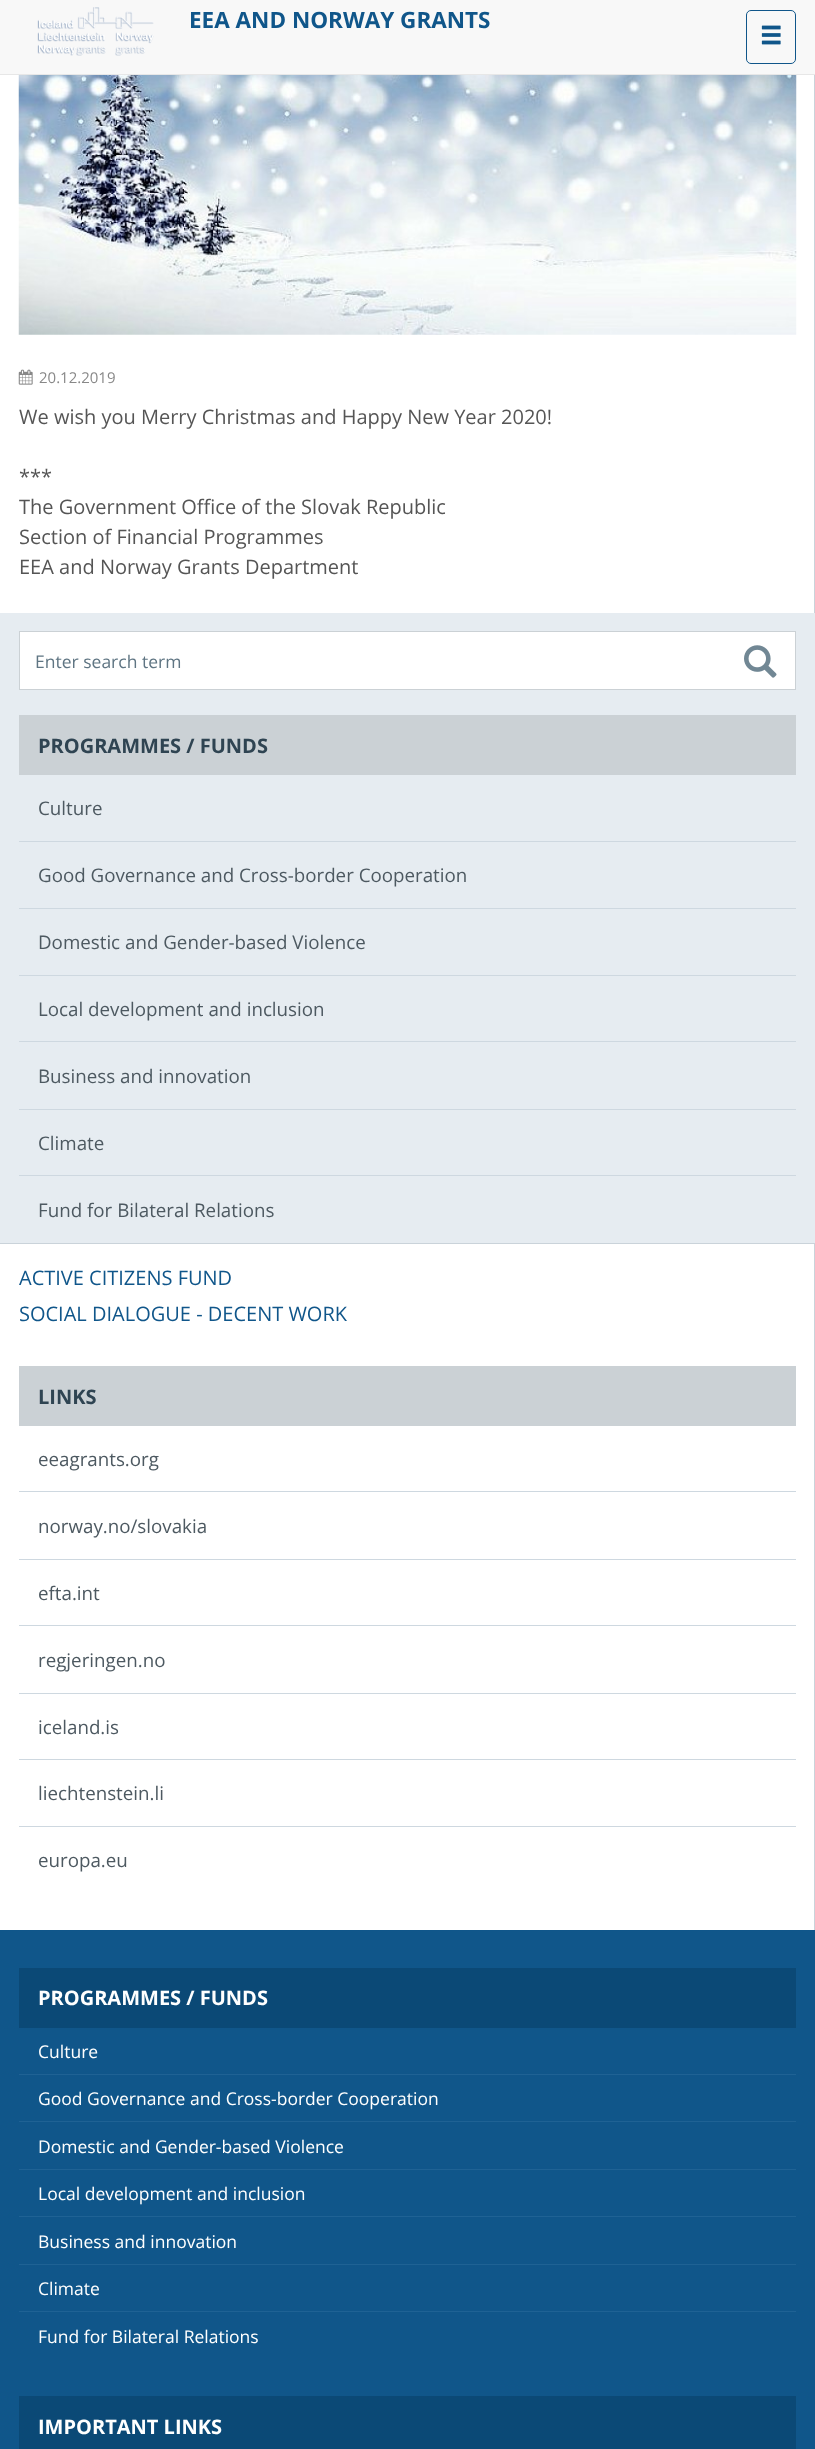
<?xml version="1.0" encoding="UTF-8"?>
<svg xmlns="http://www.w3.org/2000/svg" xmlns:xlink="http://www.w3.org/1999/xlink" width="815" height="2449">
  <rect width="100%" height="100%" fill="#ffffff" />
  <rect width="815" height="74" fill="#f8f8f8" />
  <rect y="74" width="815" height="1" fill="#e7e7e7" />
  <image x="37" y="7" width="117" height="49" xlink:href="image1.png" />
  <rect x="746.5" y="10.5" width="49" height="53" rx="4.5" fill="none" stroke="#10568a" />
  <image x="761" y="25" width="20" height="20" xlink:href="image2.png" />
  <image x="18" y="75" width="779" height="260" xlink:href="image3.png" />
  <image x="18" y="369" width="15" height="16" xlink:href="image4.png" />
  <rect x="814" y="75" width="1" height="1855" fill="#cad3da" />
  <rect y="613" width="815" height="630" fill="#e6ecf1" />
  <rect y="1243" width="815" height="1" fill="#cad3da" />
  <rect x="19.5" y="631.5" width="776" height="58" fill="#ffffff" stroke="#cbd1d5" />
  <image x="744" y="645" width="33" height="33" xlink:href="image5.png" />
  <rect x="19" y="715" width="777" height="60" fill="#cbd1d5" />
  <rect x="19" y="841" width="777" height="1" fill="#ced8e0" />
  <rect x="19" y="908" width="777" height="1" fill="#ced8e0" />
  <rect x="19" y="975" width="777" height="1" fill="#ced8e0" />
  <rect x="19" y="1041" width="777" height="1" fill="#ced8e0" />
  <rect x="19" y="1109" width="777" height="1" fill="#ced8e0" />
  <rect x="19" y="1175" width="777" height="1" fill="#ced8e0" />
  <rect x="19" y="1366" width="777" height="60" fill="#cbd1d5" />
  <rect x="19" y="1491" width="777" height="1" fill="#ced8e0" />
  <rect x="19" y="1559" width="777" height="1" fill="#ced8e0" />
  <rect x="19" y="1625" width="777" height="1" fill="#ced8e0" />
  <rect x="19" y="1693" width="777" height="1" fill="#ced8e0" />
  <rect x="19" y="1759" width="777" height="1" fill="#ced8e0" />
  <rect x="19" y="1826" width="777" height="1" fill="#ced8e0" />
  <rect y="1930" width="815" height="519" fill="#10568a" />
  <rect x="19" y="1968" width="777" height="60" fill="#0b4976" />
  <rect x="19" y="2074" width="777" height="1" fill="#1f6294" />
  <rect x="19" y="2121" width="777" height="1" fill="#1f6294" />
  <rect x="19" y="2169" width="777" height="1" fill="#1f6294" />
  <rect x="19" y="2216" width="777" height="1" fill="#1f6294" />
  <rect x="19" y="2264" width="777" height="1" fill="#1f6294" />
  <rect x="19" y="2311" width="777" height="1" fill="#1f6294" />
  <rect x="19" y="2396" width="777" height="53" fill="#0b4976" />
  <text x="189" y="28" style="font-family: Open Sans; font-size: 22.5px; font-weight: bold; fill: #10568a">EEA AND NORWAY GRANTS</text>
  <text x="39" y="383" style="font-family: Open Sans; font-size: 15px; fill: #888888">20.12.2019</text>
  <text x="19" y="424" style="font-family: Open Sans; font-size: 20px; fill: #555555">We wish you Merry Christmas and Happy New Year 2020!</text>
  <text x="19" y="484" style="font-family: Open Sans; font-size: 20px; fill: #555555">***</text>
  <text x="19" y="514" style="font-family: Open Sans; font-size: 20px; fill: #555555">The Government Office of the Slovak Republic</text>
  <text x="19" y="544" style="font-family: Open Sans; font-size: 20px; fill: #555555">Section of Financial Programmes</text>
  <text x="19" y="574" style="font-family: Open Sans; font-size: 20px; fill: #555555">EEA and Norway Grants Department</text>
  <text x="35" y="668" style="font-family: Open Sans; font-size: 17.5px; fill: #5f7583">Enter search term</text>
  <text x="38" y="753" style="font-family: Open Sans; font-size: 20px; font-weight: bold; fill: #2f4452">PROGRAMMES / FUNDS</text>
  <text x="38" y="815" style="font-family: Open Sans; font-size: 18.75px; fill: #4d5961">Culture</text>
  <text x="38" y="882" style="font-family: Open Sans; font-size: 18.75px; fill: #4d5961">Good Governance and Cross-border Cooperation</text>
  <text x="38" y="949" style="font-family: Open Sans; font-size: 18.75px; fill: #4d5961">Domestic and Gender-based Violence</text>
  <text x="38" y="1016" style="font-family: Open Sans; font-size: 18.75px; fill: #4d5961">Local development and inclusion</text>
  <text x="38" y="1083" style="font-family: Open Sans; font-size: 18.75px; fill: #4d5961">Business and innovation</text>
  <text x="38" y="1150" style="font-family: Open Sans; font-size: 18.75px; fill: #4d5961">Climate</text>
  <text x="38" y="1217" style="font-family: Open Sans; font-size: 18.75px; fill: #4d5961">Fund for Bilateral Relations</text>
  <text x="19" y="1285" style="font-family: Open Sans; font-size: 20px; fill: #10568a">ACTIVE CITIZENS FUND</text>
  <text x="19" y="1321" style="font-family: Open Sans; font-size: 20px; fill: #10568a">SOCIAL DIALOGUE - DECENT WORK</text>
  <text x="38" y="1404" style="font-family: Open Sans; font-size: 20px; font-weight: bold; fill: #2f4452">LINKS</text>
  <text x="38" y="1466" style="font-family: Open Sans; font-size: 18.75px; fill: #4d5961">eeagrants.org</text>
  <text x="38" y="1533" style="font-family: Open Sans; font-size: 18.75px; fill: #4d5961">norway.no/slovakia</text>
  <text x="38" y="1600" style="font-family: Open Sans; font-size: 18.75px; fill: #4d5961">efta.int</text>
  <text x="38" y="1667" style="font-family: Open Sans; font-size: 18.75px; fill: #4d5961">regjeringen.no</text>
  <text x="38" y="1734" style="font-family: Open Sans; font-size: 18.75px; fill: #4d5961">iceland.is</text>
  <text x="38" y="1800" style="font-family: Open Sans; font-size: 18.75px; fill: #4d5961">liechtenstein.li</text>
  <text x="38" y="1867" style="font-family: Open Sans; font-size: 18.75px; fill: #4d5961">europa.eu</text>
  <text x="38" y="2005" style="font-family: Open Sans; font-size: 20px; font-weight: bold; fill: #ffffff">PROGRAMMES / FUNDS</text>
  <text x="38" y="2058" style="font-family: Open Sans; font-size: 17.5px; fill: #ffffff">Culture</text>
  <text x="38" y="2105" style="font-family: Open Sans; font-size: 17.5px; fill: #ffffff">Good Governance and Cross-border Cooperation</text>
  <text x="38" y="2153" style="font-family: Open Sans; font-size: 17.5px; fill: #ffffff">Domestic and Gender-based Violence</text>
  <text x="38" y="2200" style="font-family: Open Sans; font-size: 17.5px; fill: #ffffff">Local development and inclusion</text>
  <text x="38" y="2248" style="font-family: Open Sans; font-size: 17.5px; fill: #ffffff">Business and innovation</text>
  <text x="38" y="2295" style="font-family: Open Sans; font-size: 17.5px; fill: #ffffff">Climate</text>
  <text x="38" y="2343" style="font-family: Open Sans; font-size: 17.5px; fill: #ffffff">Fund for Bilateral Relations</text>
  <text x="38" y="2434" style="font-family: Open Sans; font-size: 20px; font-weight: bold; fill: #ffffff">IMPORTANT LINKS</text>
</svg>
